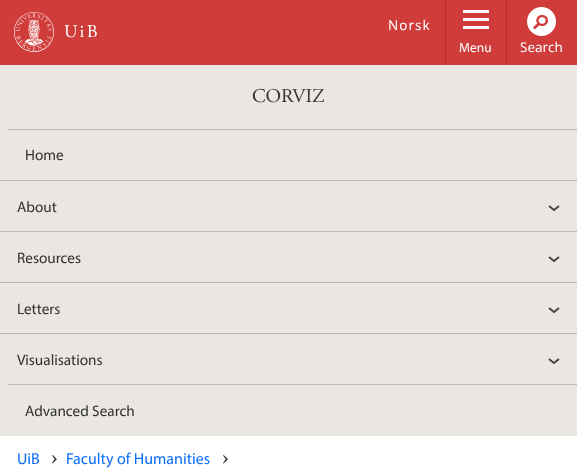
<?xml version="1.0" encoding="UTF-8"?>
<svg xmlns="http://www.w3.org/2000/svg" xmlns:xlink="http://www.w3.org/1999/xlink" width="577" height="471">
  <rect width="100%" height="100%" fill="#ffffff" />
  <rect width="577" height="65" fill="#cf3c3a" />
  <image x="14" y="12" width="40" height="40" xlink:href="image1.png" />
  <rect x="463" y="10" width="26" height="3" fill="#fdf9f8" />
  <rect x="463" y="18" width="26" height="3" fill="#fdf9f8" />
  <rect x="463" y="26" width="26" height="3" fill="#fdf9f8" />
  <rect x="506" width="1" height="65" fill="#ae2f2f" />
  <rect x="445" width="1" height="65" fill="#ae2f2f" />
  <image x="527" y="7" width="29" height="29" xlink:href="image2.png" />
  <rect y="65" width="577" height="371" fill="#eae6e2" />
  <rect x="8" y="129" width="569" height="1" fill="#b7b7b7" />
  <path d="M 559 206 l -5 4 l -5 -4" fill="none" stroke="#474747" stroke-width="2" />
  <rect y="180" width="577" height="1" fill="#b7b7b7" />
  <path d="M 559 257 l -5 4 l -5 -4" fill="none" stroke="#474747" stroke-width="2" />
  <rect y="231" width="577" height="1" fill="#b7b7b7" />
  <path d="M 559 308 l -5 4 l -5 -4" fill="none" stroke="#474747" stroke-width="2" />
  <rect y="282" width="577" height="1" fill="#b7b7b7" />
  <path d="M 559 359 l -5 4 l -5 -4" fill="none" stroke="#474747" stroke-width="2" />
  <rect y="333" width="577" height="1" fill="#b7b7b7" />
  <rect x="8" y="384" width="569" height="1" fill="#b7b7b7" />
  <image x="52" y="455" width="5" height="9" xlink:href="image3.png" />
  <image x="223" y="455" width="5" height="9" xlink:href="image3.png" />
  <text x="64" y="37" style="font-family: Adobe Garamond; font-size: 18px; letter-spacing: 2.5px; fill: #ffffff">UiB</text>
  <text x="388" y="30" style="font-family: Noto Sans; font-size: 13.5px; letter-spacing: 1px; fill: #ffffff">Norsk</text>
  <text x="459" y="52" style="font-family: Myriad; font-size: 13.5px; fill: #ffffff">Menu</text>
  <text x="520" y="52" style="font-family: Noto Sans; font-size: 13.5px; fill: #ffffff">Search</text>
  <text x="252" y="102" style="font-family: Adobe Garamond; font-size: 19.5px; fill: #333333">CORVIZ</text>
  <text x="25" y="160" style="font-family: Myriad; font-size: 15.25px; fill: #333333">Home</text>
  <text x="17" y="212" style="font-family: Myriad; font-size: 15.25px; fill: #333333">About</text>
  <text x="17" y="263" style="font-family: Myriad; font-size: 15.25px; fill: #333333">Resources</text>
  <text x="17" y="314" style="font-family: Myriad; font-size: 15.25px; fill: #333333">Letters</text>
  <text x="17" y="365" style="font-family: Myriad; font-size: 15.25px; fill: #333333">Visualisations</text>
  <text x="25" y="416" style="font-family: Myriad; font-size: 15.25px; fill: #333333">Advanced Search</text>
  <text x="17" y="464" style="font-family: Myriad; font-size: 16px; fill: #0d6efd">UiB</text>
  <text x="66" y="464" style="font-family: Myriad; font-size: 16px; fill: #0d6efd">Faculty of Humanities</text>
</svg>
